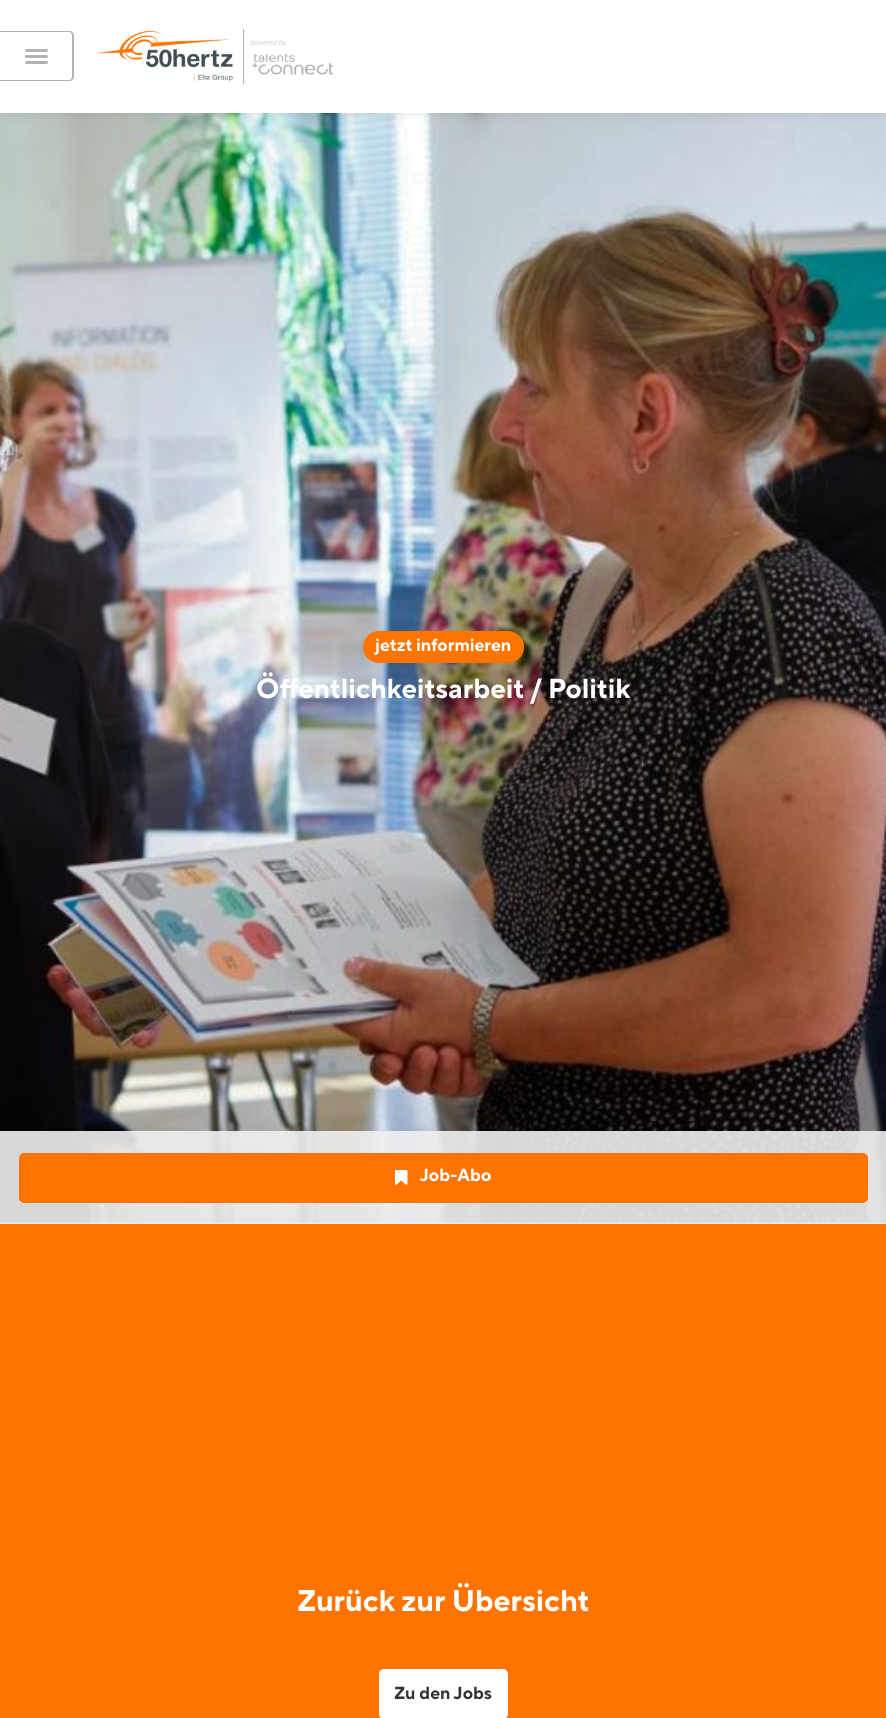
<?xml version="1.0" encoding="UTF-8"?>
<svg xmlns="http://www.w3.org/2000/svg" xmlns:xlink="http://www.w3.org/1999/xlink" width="886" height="1718">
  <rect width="100%" height="100%" fill="#ffffff" />
  <image x="0" y="113" width="886" height="1111" xlink:href="image2.png" />
  <rect width="886" height="113" fill="#000000" fill-opacity="0.1" filter="blur(6px)" />
  <rect width="886" height="113" fill="#ffffff" />
  <path d="M 0 31 h 69 c 3 0 5 2 5 5 v 40 c 0 3 -2 5 -5 5 h -69 z m 0 1 h 69 c 2 0 3 2 3 4 v 40 c 0 2 -1 4 -3 4 h -69 z" fill="#b3b3b3" fill-rule="evenodd" />
  <rect x="25" y="49" width="23" height="3" rx="1.5" fill="#b3b3b3" />
  <rect x="25" y="55" width="23" height="3" rx="1.5" fill="#b3b3b3" />
  <rect x="25" y="61" width="23" height="3" rx="1.5" fill="#b3b3b3" />
  <image x="96" y="28" width="238" height="56" xlink:href="image1.png" />
  <rect x="363" y="631" width="161" height="32" rx="16" fill="#ff7300" />
  <rect y="1131" width="886" height="93" fill="#efefef" fill-opacity="0.9" />
  <rect x="19" y="1153" width="849" height="50" rx="5" fill="#ff7300" />
  <image x="395" y="1170" width="13" height="15" xlink:href="image3.png" />
  <rect y="1224" width="886" height="494" fill="#ff7300" />
  <rect x="379" y="1669" width="129" height="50" rx="5" fill="#ffffff" />
  <text x="375" y="651" style="font-family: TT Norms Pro; font-size: 17.5px; font-weight: bold; fill: #ffffff">jetzt informieren</text>
  <text x="256" y="698" style="font-family: TT Norms Pro; font-size: 27.5px; font-weight: bold; fill: #ffffff">Öffentlichkeitsarbeit / Politik</text>
  <text x="420" y="1181" style="font-family: TT Norms Pro; font-size: 17.5px; font-weight: bold; fill: #ffffff">Job-Abo</text>
  <text x="297" y="1611" style="font-family: TT Norms Pro; font-size: 30px; font-weight: bold; fill: #ffffff">Zurück zur Übersicht</text>
  <text x="394" y="1699" style="font-family: TT Norms Pro; font-size: 17.5px; font-weight: bold; fill: #333333">Zu den Jobs</text>
</svg>
